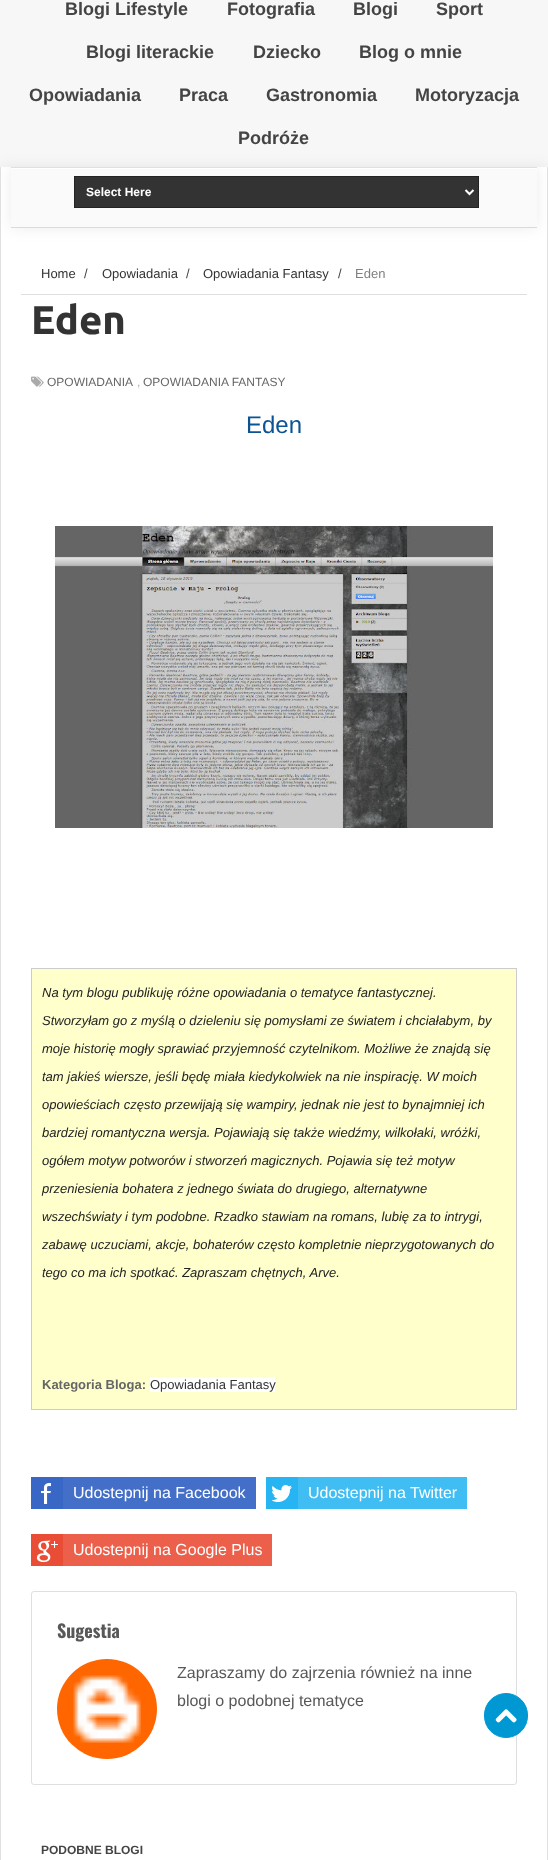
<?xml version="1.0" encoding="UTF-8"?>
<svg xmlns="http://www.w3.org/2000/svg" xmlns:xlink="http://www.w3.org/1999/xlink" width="548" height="1860">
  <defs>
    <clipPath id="clip1"><rect x="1" y="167" width="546" height="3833" /></clipPath>
  </defs>
  <rect width="100%" height="100%" fill="#f7f7f7" />
  <rect y="167" width="548" height="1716" fill="#000000" fill-opacity="0.07" filter="blur(7.5px)" />
  <rect x="1" y="167" width="546" height="1693" fill="#ffffff" />
  <rect x="547" y="167" width="1" height="1693" fill="#e0e0e0" />
  <rect y="167" width="1" height="1693" fill="#e0e0e0" />
  <g clip-path="url(#clip1)">
    <rect x="11" y="167" width="526" height="61" fill="#000000" fill-opacity="0.07" filter="blur(7.5px)" />
  </g>
  <rect x="11" y="169" width="526" height="58" fill="#fafafa" />
  <rect x="11" y="227" width="526" height="1" fill="#dadada" />
  <rect x="11" y="168" width="526" height="1" fill="#ffffff" />
  <rect x="11" y="167" width="526" height="1" fill="#e0e0e0" />
  <rect x="74.5" y="176.5" width="404" height="31" fill="#333333" stroke="#232323" />
  <path d="M 465.5 190 l 4 4 l 4 -4" fill="none" stroke="#ffffff" stroke-width="2" />
  <rect x="21" y="294" width="506" height="1" fill="#dfdfdf" />
  <image x="31" y="376" width="13" height="11" xlink:href="image1.png" />
  <image x="55" y="526" width="438" height="302" xlink:href="image2.png" />
  <rect x="31" y="968" width="486" height="1" fill="#cccccc" />
  <rect x="516" y="968" width="1" height="442" fill="#cccccc" />
  <rect x="31" y="1409" width="486" height="1" fill="#cccccc" />
  <rect x="31" y="968" width="1" height="442" fill="#cccccc" />
  <rect x="32" y="969" width="484" height="440" fill="#ffffcc" />
  <rect x="150" y="1377" width="125" height="15" fill="#ffffff" />
  <rect x="63" y="1477" width="193" height="32" fill="#436fc9" />
  <rect x="31" y="1477" width="32" height="32" fill="#3967c6" />
  <image x="41" y="1483" width="10" height="21" xlink:href="image3.png" />
  <rect x="298" y="1477" width="169" height="32" fill="#40bef4" />
  <rect x="266" y="1477" width="32" height="32" fill="#26b5f2" />
  <image x="271" y="1485" width="21" height="17" xlink:href="image4.png" />
  <rect x="63" y="1534" width="209" height="32" fill="#ec5f4a" />
  <rect x="31" y="1534" width="32" height="32" fill="#e94d36" />
  <image x="36" y="1540" width="22" height="23" xlink:href="image5.png" />
  <rect x="31.5" y="1591.5" width="485" height="193" rx="2.5" fill="none" stroke="#dfdfdf" />
  <image x="57" y="1659" width="100" height="100" xlink:href="image6.png" />
  <rect x="484.5" y="1693.5" width="43" height="44" rx="21.5" fill="#0098d3" stroke="#0098d3" />
  <image x="495" y="1709" width="22" height="14" xlink:href="image7.png" />
  <text x="65" y="15" style="font-family: Liberation Sans; font-size: 18px; font-weight: bold; fill: #444444">Blogi Lifestyle</text>
  <text x="227" y="15" style="font-family: Liberation Sans; font-size: 18px; font-weight: bold; fill: #444444">Fotografia</text>
  <text x="353" y="15" style="font-family: Liberation Sans; font-size: 18px; font-weight: bold; fill: #444444">Blogi</text>
  <text x="436" y="15" style="font-family: Liberation Sans; font-size: 18px; font-weight: bold; fill: #444444">Sport</text>
  <text x="86" y="58" style="font-family: Liberation Sans; font-size: 18px; font-weight: bold; fill: #444444">Blogi literackie</text>
  <text x="253" y="58" style="font-family: Liberation Sans; font-size: 18px; font-weight: bold; fill: #444444">Dziecko</text>
  <text x="359" y="58" style="font-family: Liberation Sans; font-size: 18px; font-weight: bold; fill: #444444">Blog o mnie</text>
  <text x="29" y="101" style="font-family: Liberation Sans; font-size: 18px; font-weight: bold; fill: #444444">Opowiadania</text>
  <text x="179" y="101" style="font-family: Liberation Sans; font-size: 18px; font-weight: bold; fill: #444444">Praca</text>
  <text x="266" y="101" style="font-family: Liberation Sans; font-size: 18px; font-weight: bold; fill: #444444">Gastronomia</text>
  <text x="415" y="101" style="font-family: Liberation Sans; font-size: 18px; font-weight: bold; fill: #444444">Motoryzacja</text>
  <text x="238" y="144" style="font-family: Liberation Sans; font-size: 18px; font-weight: bold; fill: #444444">Podróże</text>
  <text x="86" y="196" style="font-family: Liberation Sans; font-size: 12px; font-weight: bold; fill: #ffffff">Select Here</text>
  <text x="41" y="278" style="font-family: Liberation Sans; font-size: 13px; fill: #333333">Home</text>
  <text x="84" y="278" style="font-family: Liberation Sans; font-size: 13px; fill: #444444">/</text>
  <text x="102" y="278" style="font-family: Liberation Sans; font-size: 13px; fill: #333333">Opowiadania</text>
  <text x="186" y="278" style="font-family: Liberation Sans; font-size: 13px; fill: #444444">/</text>
  <text x="203" y="278" style="font-family: Liberation Sans; font-size: 13px; fill: #333333">Opowiadania Fantasy</text>
  <text x="338" y="278" style="font-family: Liberation Sans; font-size: 13px; fill: #444444">/</text>
  <text x="355" y="278" style="font-family: Liberation Sans; font-size: 13px; fill: #808080">Eden</text>
  <text x="31" y="334" style="font-family: Ubuntu; font-size: 40px; font-weight: bold; fill: #333333">Eden</text>
  <text x="47" y="386" style="font-family: Liberation Sans; font-size: 12px; fill: #666666">OPOWIADANIA</text>
  <text x="137" y="386" style="font-family: Liberation Sans; font-size: 12px; fill: #aaaaaa">,</text>
  <text x="143" y="386" style="font-family: Liberation Sans; font-size: 12px; fill: #666666">OPOWIADANIA FANTASY</text>
  <text x="246" y="433" style="font-family: Liberation Sans; font-size: 24px; fill: #0b5394">Eden</text>
  <text x="42" y="997" style="font-family: Liberation Sans; font-size: 13px; font-style: italic; fill: #222222">Na tym blogu publikuję różne opowiadania o tematyce fantastycznej.</text>
  <text x="42" y="1025" style="font-family: Liberation Sans; font-size: 13px; font-style: italic; fill: #222222">Stworzyłam go z myślą o dzieleniu się pomysłami ze światem i chciałabym, by</text>
  <text x="42" y="1053" style="font-family: Liberation Sans; font-size: 13px; font-style: italic; fill: #222222">moje historię mogły sprawiać przyjemność czytelnikom. Możliwe że znajdą się</text>
  <text x="42" y="1081" style="font-family: Liberation Sans; font-size: 13px; font-style: italic; fill: #222222">tam jakieś wiersze, jeśli będę miała kiedykolwiek na nie inspirację. W moich</text>
  <text x="42" y="1109" style="font-family: Liberation Sans; font-size: 13px; font-style: italic; fill: #222222">opowieściach często przewijają się wampiry, jednak nie jest to bynajmniej ich</text>
  <text x="42" y="1137" style="font-family: Liberation Sans; font-size: 13px; font-style: italic; fill: #222222">bardziej romantyczna wersja. Pojawiają się także wiedźmy, wilkołaki, wróżki,</text>
  <text x="42" y="1165" style="font-family: Liberation Sans; font-size: 13px; font-style: italic; fill: #222222">ogółem motyw potworów i stworzeń magicznych. Pojawia się też motyw</text>
  <text x="42" y="1193" style="font-family: Liberation Sans; font-size: 13px; font-style: italic; fill: #222222">przeniesienia bohatera z jednego świata do drugiego, alternatywne</text>
  <text x="42" y="1221" style="font-family: Liberation Sans; font-size: 13px; font-style: italic; fill: #222222">wszechświaty i tym podobne. Rzadko stawiam na romans, lubię za to intrygi,</text>
  <text x="42" y="1249" style="font-family: Liberation Sans; font-size: 13px; font-style: italic; fill: #222222">zabawę uczuciami, akcje, bohaterów często kompletnie nieprzygotowanych do</text>
  <text x="42" y="1277" style="font-family: Liberation Sans; font-size: 13px; font-style: italic; fill: #222222">tego co ma ich spotkać. Zapraszam chętnych, Arve.</text>
  <text x="42" y="1389" style="font-family: Liberation Sans; font-size: 13px; font-weight: bold; fill: #666666">Kategoria Bloga:</text>
  <text x="150" y="1389" style="font-family: Liberation Sans; font-size: 13px; fill: #333333">Opowiadania Fantasy</text>
  <text x="73" y="1498" style="font-family: Liberation Sans; font-size: 16px; fill: #ffffff">Udostepnij na Facebook</text>
  <text x="308" y="1498" style="font-family: Liberation Sans; font-size: 16px; fill: #ffffff">Udostepnij na Twitter</text>
  <text x="73" y="1555" style="font-family: Liberation Sans; font-size: 16px; fill: #ffffff">Udostepnij na Google Plus</text>
  <text x="57" y="1638" style="font-family: Oswald; font-size: 18px; font-weight: bold; fill: #585858">Sugestia</text>
  <text x="177" y="1678" style="font-family: Liberation Sans; font-size: 16px; fill: #585858">Zapraszamy do zajrzenia również na inne</text>
  <text x="177" y="1706" style="font-family: Liberation Sans; font-size: 16px; fill: #585858">blogi o podobnej tematyce</text>
  <text x="41" y="1854" style="font-family: Liberation Sans; font-size: 12px; font-weight: bold; fill: #444444">PODOBNE BLOGI</text>
</svg>
